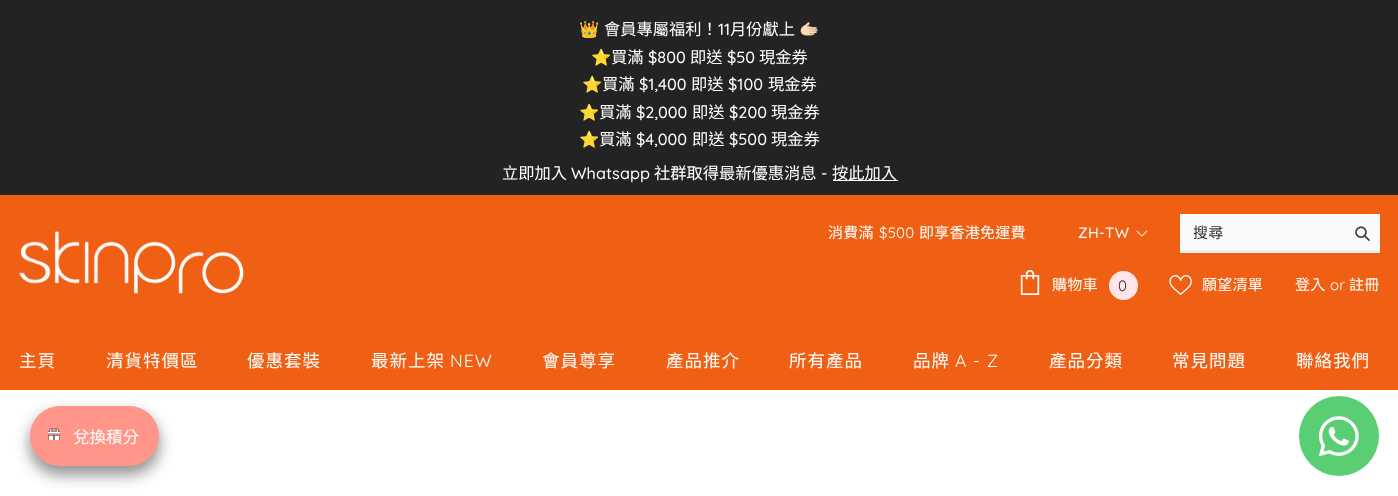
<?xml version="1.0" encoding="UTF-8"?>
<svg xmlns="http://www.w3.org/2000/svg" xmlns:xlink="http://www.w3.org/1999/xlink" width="1398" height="496">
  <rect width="100%" height="100%" fill="#ffffff" />
  <rect width="1398" height="195" fill="#232323" />
  <rect x="833" y="180" width="65" height="1" fill="#ffffff" />
  <rect y="195" width="1398" height="195" fill="#ef6015" />
  <image x="19" y="231" width="225" height="63" xlink:href="image1.png" />
  <image x="1136" y="230" width="12" height="7" xlink:href="image2.png" />
  <rect x="1180" y="214" width="200" height="39" fill="#fafafa" />
  <rect x="1180" y="251" width="200" height="1" fill="#e7e7e7" />
  <image x="1355" y="226" width="15" height="16" xlink:href="image3.png" />
  <image x="1020" y="270" width="20" height="25" xlink:href="image4.png" />
  <circle cx="1123.5" cy="285.5" r="14.5" fill="#ffe5e8" />
  <image x="1169" y="275" width="23" height="20" xlink:href="image5.png" />
  <rect x="30" y="414" width="129" height="60" rx="30" fill="#000000" fill-opacity="0.25" filter="blur(7.5px)" />
  <circle cx="1339" cy="436" r="40" fill="#59ce72" />
  <image x="1319" y="416" width="40" height="40" xlink:href="image6.png" />
  <rect x="30" y="414" width="129" height="60" rx="30" fill="#000000" fill-opacity="0.25" filter="blur(7.5px)" />
  <rect x="30" y="406" width="129" height="60" rx="30" fill="#ff9689" />
  <image x="48" y="428" width="12" height="12" xlink:href="image7.png" />
  <text x="579" y="35" style="font-family: Noto Color Emoji; font-size: 16.25px; fill: #ffffff">👑</text>
  <text x="604" y="35" style="font-family: Noto Sans CJK TC; font-size: 16.25px; fill: #ffffff">會員專屬福利！</text>
  <text x="718" y="35" style="font-family: Quicksand; font-size: 16.25px; font-weight: 500; fill: #ffffff">11</text>
  <text x="730" y="35" style="font-family: Noto Sans CJK TC; font-size: 16.25px; fill: #ffffff">月份獻上</text>
  <text x="799" y="35" style="font-family: Noto Color Emoji; font-size: 16.25px; fill: #ffffff">🫱🏻</text>
  <text x="591" y="63" style="font-family: Noto Color Emoji; font-size: 16.25px; fill: #ffffff">⭐</text>
  <text x="611" y="63" style="font-family: Noto Sans CJK TC; font-size: 16.25px; fill: #ffffff">買滿</text>
  <text x="648" y="63" style="font-family: Quicksand; font-size: 16.25px; font-weight: 500; fill: #ffffff">$800</text>
  <text x="690" y="63" style="font-family: Noto Sans CJK TC; font-size: 16.25px; fill: #ffffff">即送</text>
  <text x="727" y="63" style="font-family: Quicksand; font-size: 16.25px; font-weight: 500; fill: #ffffff">$50</text>
  <text x="759" y="63" style="font-family: Noto Sans CJK TC; font-size: 16.25px; fill: #ffffff">現金券</text>
  <text x="582" y="90" style="font-family: Noto Color Emoji; font-size: 16.25px; fill: #ffffff">⭐</text>
  <text x="602" y="90" style="font-family: Noto Sans CJK TC; font-size: 16.25px; fill: #ffffff">買滿</text>
  <text x="639" y="90" style="font-family: Quicksand; font-size: 16.25px; font-weight: 500; fill: #ffffff">$1,400</text>
  <text x="691" y="90" style="font-family: Noto Sans CJK TC; font-size: 16.25px; fill: #ffffff">即送</text>
  <text x="728" y="90" style="font-family: Quicksand; font-size: 16.25px; font-weight: 500; fill: #ffffff">$100</text>
  <text x="768" y="90" style="font-family: Noto Sans CJK TC; font-size: 16.25px; fill: #ffffff">現金券</text>
  <text x="579" y="118" style="font-family: Noto Color Emoji; font-size: 16.25px; fill: #ffffff">⭐</text>
  <text x="599" y="118" style="font-family: Noto Sans CJK TC; font-size: 16.25px; fill: #ffffff">買滿</text>
  <text x="636" y="118" style="font-family: Quicksand; font-size: 16.25px; font-weight: 500; fill: #ffffff">$2,000</text>
  <text x="692" y="118" style="font-family: Noto Sans CJK TC; font-size: 16.25px; fill: #ffffff">即送</text>
  <text x="729" y="118" style="font-family: Quicksand; font-size: 16.25px; font-weight: 500; fill: #ffffff">$200</text>
  <text x="771" y="118" style="font-family: Noto Sans CJK TC; font-size: 16.25px; fill: #ffffff">現金券</text>
  <text x="579" y="145" style="font-family: Noto Color Emoji; font-size: 16.25px; fill: #ffffff">⭐</text>
  <text x="599" y="145" style="font-family: Noto Sans CJK TC; font-size: 16.25px; fill: #ffffff">買滿</text>
  <text x="636" y="145" style="font-family: Quicksand; font-size: 16.25px; font-weight: 500; fill: #ffffff">$4,000</text>
  <text x="692" y="145" style="font-family: Noto Sans CJK TC; font-size: 16.25px; fill: #ffffff">即送</text>
  <text x="729" y="145" style="font-family: Quicksand; font-size: 16.25px; font-weight: 500; fill: #ffffff">$500</text>
  <text x="771" y="145" style="font-family: Noto Sans CJK TC; font-size: 16.25px; fill: #ffffff">現金券</text>
  <text x="502" y="179" style="font-family: Noto Sans CJK TC; font-size: 16.25px; fill: #ffffff">立即加入</text>
  <text x="571" y="179" style="font-family: Quicksand; font-size: 16.25px; font-weight: 500; fill: #ffffff">Whatsapp</text>
  <text x="654" y="179" style="font-family: Noto Sans CJK TC; font-size: 16.25px; fill: #ffffff">社群取得最新優惠消息</text>
  <text x="821" y="179" style="font-family: Quicksand; font-size: 16.25px; font-weight: 500; fill: #ffffff">-</text>
  <text x="832" y="179" style="font-family: Noto Sans CJK TC; font-size: 16.25px; fill: #ffffff">按此加入</text>
  <text x="828" y="238" style="font-family: Noto Sans CJK TC; font-size: 15px; letter-spacing: 0.25px; fill: #ffffff">消費滿</text>
  <text x="879" y="238" style="font-family: Quicksand; font-size: 15px; letter-spacing: 0.25px; fill: #ffffff">$500</text>
  <text x="919" y="238" style="font-family: Noto Sans CJK TC; font-size: 15px; letter-spacing: 0.25px; fill: #ffffff">即享香港免運費</text>
  <text x="1078" y="238" style="font-family: Quicksand; font-size: 15px; font-weight: 500; letter-spacing: 0.25px; fill: #ffffff">ZH-TW</text>
  <text x="1193" y="238" style="font-family: Noto Sans CJK TC; font-size: 15px; letter-spacing: 0.25px; fill: #323232">搜尋</text>
  <text x="1052" y="290" style="font-family: Noto Sans CJK TC; font-size: 15px; letter-spacing: 0.25px; fill: #ffffff">購物車</text>
  <text x="1118" y="291" style="font-family: Quicksand; font-size: 15px; fill: #323232">0</text>
  <text x="1202" y="290" style="font-family: Noto Sans CJK TC; font-size: 15px; letter-spacing: 0.25px; fill: #ffffff">願望清單</text>
  <text x="1295" y="290" style="font-family: Noto Sans CJK TC; font-size: 15px; letter-spacing: 0.25px; fill: #ffffff">登入</text>
  <text x="1330" y="290" style="font-family: Quicksand; font-size: 15px; letter-spacing: 0.25px; fill: #ffffff">or</text>
  <text x="1349" y="290" style="font-family: Noto Sans CJK TC; font-size: 15px; letter-spacing: 0.25px; fill: #ffffff">註冊</text>
  <text x="19" y="367" style="font-family: Noto Sans CJK TC; font-size: 17.5px; letter-spacing: 1px; fill: #ffffff">主頁</text>
  <text x="106" y="367" style="font-family: Noto Sans CJK TC; font-size: 17.5px; letter-spacing: 1px; fill: #ffffff">清貨特價區</text>
  <text x="247" y="367" style="font-family: Noto Sans CJK TC; font-size: 17.5px; letter-spacing: 1px; fill: #ffffff">優惠套裝</text>
  <text x="371" y="367" style="font-family: Noto Sans CJK TC; font-size: 17.5px; letter-spacing: 1px; fill: #ffffff">最新上架</text>
  <text x="450" y="367" style="font-family: Quicksand; font-size: 17.5px; letter-spacing: 1px; fill: #ffffff">NEW</text>
  <text x="542" y="367" style="font-family: Noto Sans CJK TC; font-size: 17.5px; letter-spacing: 1px; fill: #ffffff">會員尊享</text>
  <text x="666" y="367" style="font-family: Noto Sans CJK TC; font-size: 17.5px; letter-spacing: 1px; fill: #ffffff">產品推介</text>
  <text x="789" y="367" style="font-family: Noto Sans CJK TC; font-size: 17.5px; letter-spacing: 1px; fill: #ffffff">所有產品</text>
  <text x="913" y="367" style="font-family: Noto Sans CJK TC; font-size: 17.5px; letter-spacing: 1px; fill: #ffffff">品牌</text>
  <text x="955" y="367" style="font-family: Quicksand; font-size: 17.5px; letter-spacing: 1px; fill: #ffffff">A - Z</text>
  <text x="1049" y="367" style="font-family: Noto Sans CJK TC; font-size: 17.5px; letter-spacing: 1px; fill: #ffffff">產品分類</text>
  <text x="1172" y="367" style="font-family: Noto Sans CJK TC; font-size: 17.5px; letter-spacing: 1px; fill: #ffffff">常見問題</text>
  <text x="1296" y="367" style="font-family: Noto Sans CJK TC; font-size: 17.5px; letter-spacing: 1px; fill: #ffffff">聯絡我們</text>
  <text x="73" y="443" style="font-family: Noto Sans CJK TC; font-size: 16.5px; fill: #ffffff">兌換積分</text>
</svg>
